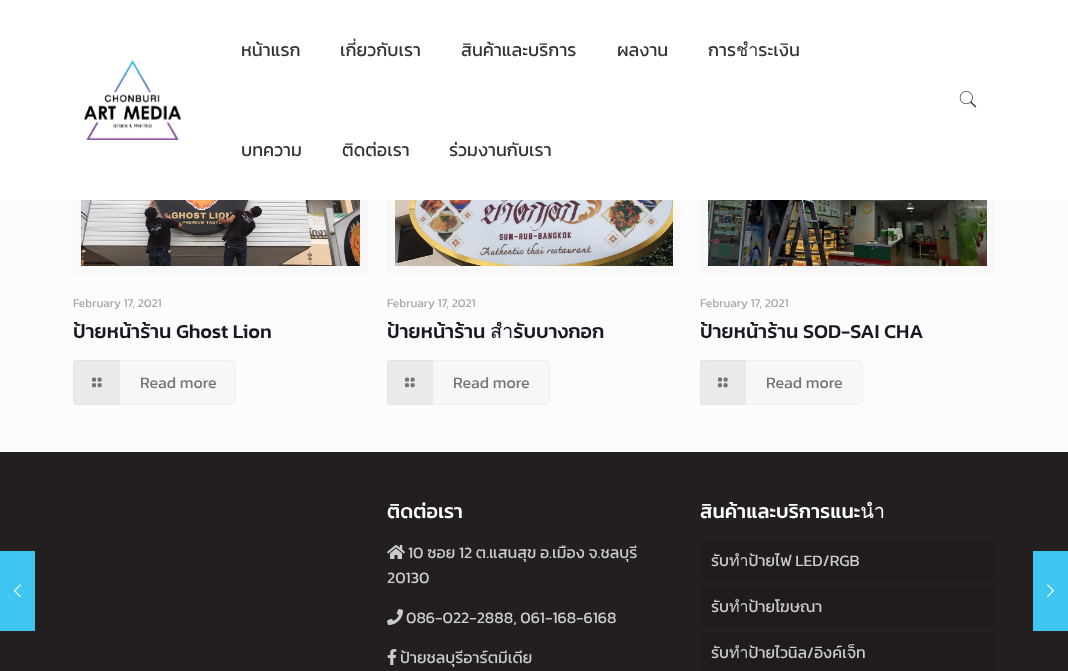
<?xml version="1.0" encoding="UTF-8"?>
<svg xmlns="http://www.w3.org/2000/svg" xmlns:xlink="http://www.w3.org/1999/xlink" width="1068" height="671">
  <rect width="100%" height="100%" fill="#fcfcfc" />
  <rect y="452" width="1068" height="219" fill="#231f20" />
  <rect y="551" width="35" height="80" fill="#3ec6f1" />
  <image x="14" y="584" width="7" height="14" xlink:href="image1.png" />
  <rect x="77" y="82" width="287" height="188" fill="none" stroke="#f8f8f8" stroke-width="8" />
  <rect x="391" y="82" width="286" height="188" fill="none" stroke="#f8f8f8" stroke-width="8" />
  <rect x="704" y="82" width="287" height="188" fill="none" stroke="#f8f8f8" stroke-width="8" />
  <rect width="1068" height="200" fill="#ffffff" />
  <image x="84" y="60" width="97" height="80" xlink:href="image2.png" />
  <image x="959" y="91" width="18" height="17" xlink:href="image3.png" />
  <image x="81" y="200" width="279" height="66" xlink:href="image4.png" />
  <rect x="73.5" y="360.5" width="162" height="44" rx="4.5" fill="#f7f7f7" stroke="#f0f0f0" />
  <image x="92" y="377" width="10" height="11" xlink:href="image5.png" />
  <rect x="73" y="360" width="47" height="45" fill="#000000" fill-opacity="0.05" />
  <image x="395" y="200" width="278" height="66" xlink:href="image6.png" />
  <rect x="387.5" y="360.5" width="162" height="44" rx="4.5" fill="#f7f7f7" stroke="#f0f0f0" />
  <image x="405" y="377" width="10" height="11" xlink:href="image5.png" />
  <rect x="387" y="360" width="46" height="45" fill="#000000" fill-opacity="0.05" />
  <image x="708" y="200" width="279" height="66" xlink:href="image7.png" />
  <rect x="700.5" y="360.5" width="162" height="44" rx="4.5" fill="#f7f7f7" stroke="#f0f0f0" />
  <image x="718" y="377" width="10" height="11" xlink:href="image5.png" />
  <rect x="700" y="360" width="46" height="45" fill="#000000" fill-opacity="0.05" />
  <image x="387" y="545" width="18" height="14" xlink:href="image8.png" />
  <image x="387" y="609" width="16" height="16" xlink:href="image9.png" />
  <image x="387" y="649" width="10" height="16" xlink:href="image10.png" />
  <rect x="700" y="540" width="295" height="41" fill="#201c1d" />
  <rect x="700" y="586" width="295" height="41" fill="#201c1d" />
  <rect x="700" y="632" width="295" height="39" fill="#201c1d" />
  <rect x="1033" y="551" width="35" height="80" fill="#3ec6f1" />
  <image x="1047" y="584" width="7" height="14" xlink:href="image11.png" />
  <text x="241" y="56" style="font-family: Kanit; font-size: 18px; fill: #333333">หน้าแรก</text>
  <text x="340" y="56" style="font-family: Kanit; font-size: 18px; fill: #333333">เกี่ยวกับเรา</text>
  <text x="461" y="56" style="font-family: Kanit; font-size: 18px; fill: #333333">สินค้าและบริการ</text>
  <text x="617" y="56" style="font-family: Kanit; font-size: 18px; fill: #333333">ผลงาน</text>
  <text x="708" y="56" style="font-family: Kanit; font-size: 18px; fill: #333333">การชำระเงิน</text>
  <text x="241" y="156" style="font-family: Kanit; font-size: 18px; fill: #333333">บทความ</text>
  <text x="342" y="156" style="font-family: Kanit; font-size: 18px; fill: #333333">ติดต่อเรา</text>
  <text x="449" y="156" style="font-family: Kanit; font-size: 18px; fill: #333333">ร่วมงานกับเรา</text>
  <text x="73" y="307" style="font-family: Kanit; font-size: 12px; fill: #a8a8a8">February 17, 2021</text>
  <text x="73" y="338" style="font-family: Kanit; font-size: 20px; font-weight: 500; fill: #161922">ป้ายหน้าร้าน Ghost Lion</text>
  <text x="140" y="388" style="font-family: Kanit; font-size: 16px; fill: #747474">Read more</text>
  <text x="387" y="307" style="font-family: Kanit; font-size: 12px; fill: #a8a8a8">February 17, 2021</text>
  <text x="387" y="338" style="font-family: Kanit; font-size: 20px; font-weight: 500; fill: #161922">ป้ายหน้าร้าน สำรับบางกอก</text>
  <text x="453" y="388" style="font-family: Kanit; font-size: 16px; fill: #747474">Read more</text>
  <text x="700" y="307" style="font-family: Kanit; font-size: 12px; fill: #a8a8a8">February 17, 2021</text>
  <text x="700" y="338" style="font-family: Kanit; font-size: 20px; font-weight: 500; fill: #161922">ป้ายหน้าร้าน SOD-SAI CHA</text>
  <text x="766" y="388" style="font-family: Kanit; font-size: 16px; fill: #747474">Read more</text>
  <text x="387" y="518" style="font-family: Kanit; font-size: 20px; font-weight: 500; fill: #ffffff">ติดต่อเรา</text>
  <text x="408" y="558" style="font-family: Kanit; font-size: 16px; fill: #cccccc">10 ซอย 12 ต.แสนสุข อ.เมือง จ.ชลบุรี</text>
  <text x="387" y="583" style="font-family: Kanit; font-size: 16px; fill: #cccccc">20130</text>
  <text x="406" y="623" style="font-family: Kanit; font-size: 16px; fill: #cccccc">086-022-2888, 061-168-6168</text>
  <text x="400" y="663" style="font-family: Kanit; font-size: 16px; fill: #cccccc">ป้ายชลบุรีอาร์ตมีเดีย</text>
  <text x="700" y="518" style="font-family: Kanit; font-size: 20px; font-weight: 500; fill: #ffffff">สินค้าและบริการแนะนำ</text>
  <text x="711" y="566" style="font-family: Kanit; font-size: 16px; fill: #cccccc">รับทำป้ายไฟ LED/RGB</text>
  <text x="711" y="612" style="font-family: Kanit; font-size: 16px; fill: #cccccc">รับทำป้ายโฆษณา</text>
  <text x="711" y="658" style="font-family: Kanit; font-size: 16px; fill: #cccccc">รับทำป้ายไวนิล/อิงค์เจ็ท</text>
</svg>
